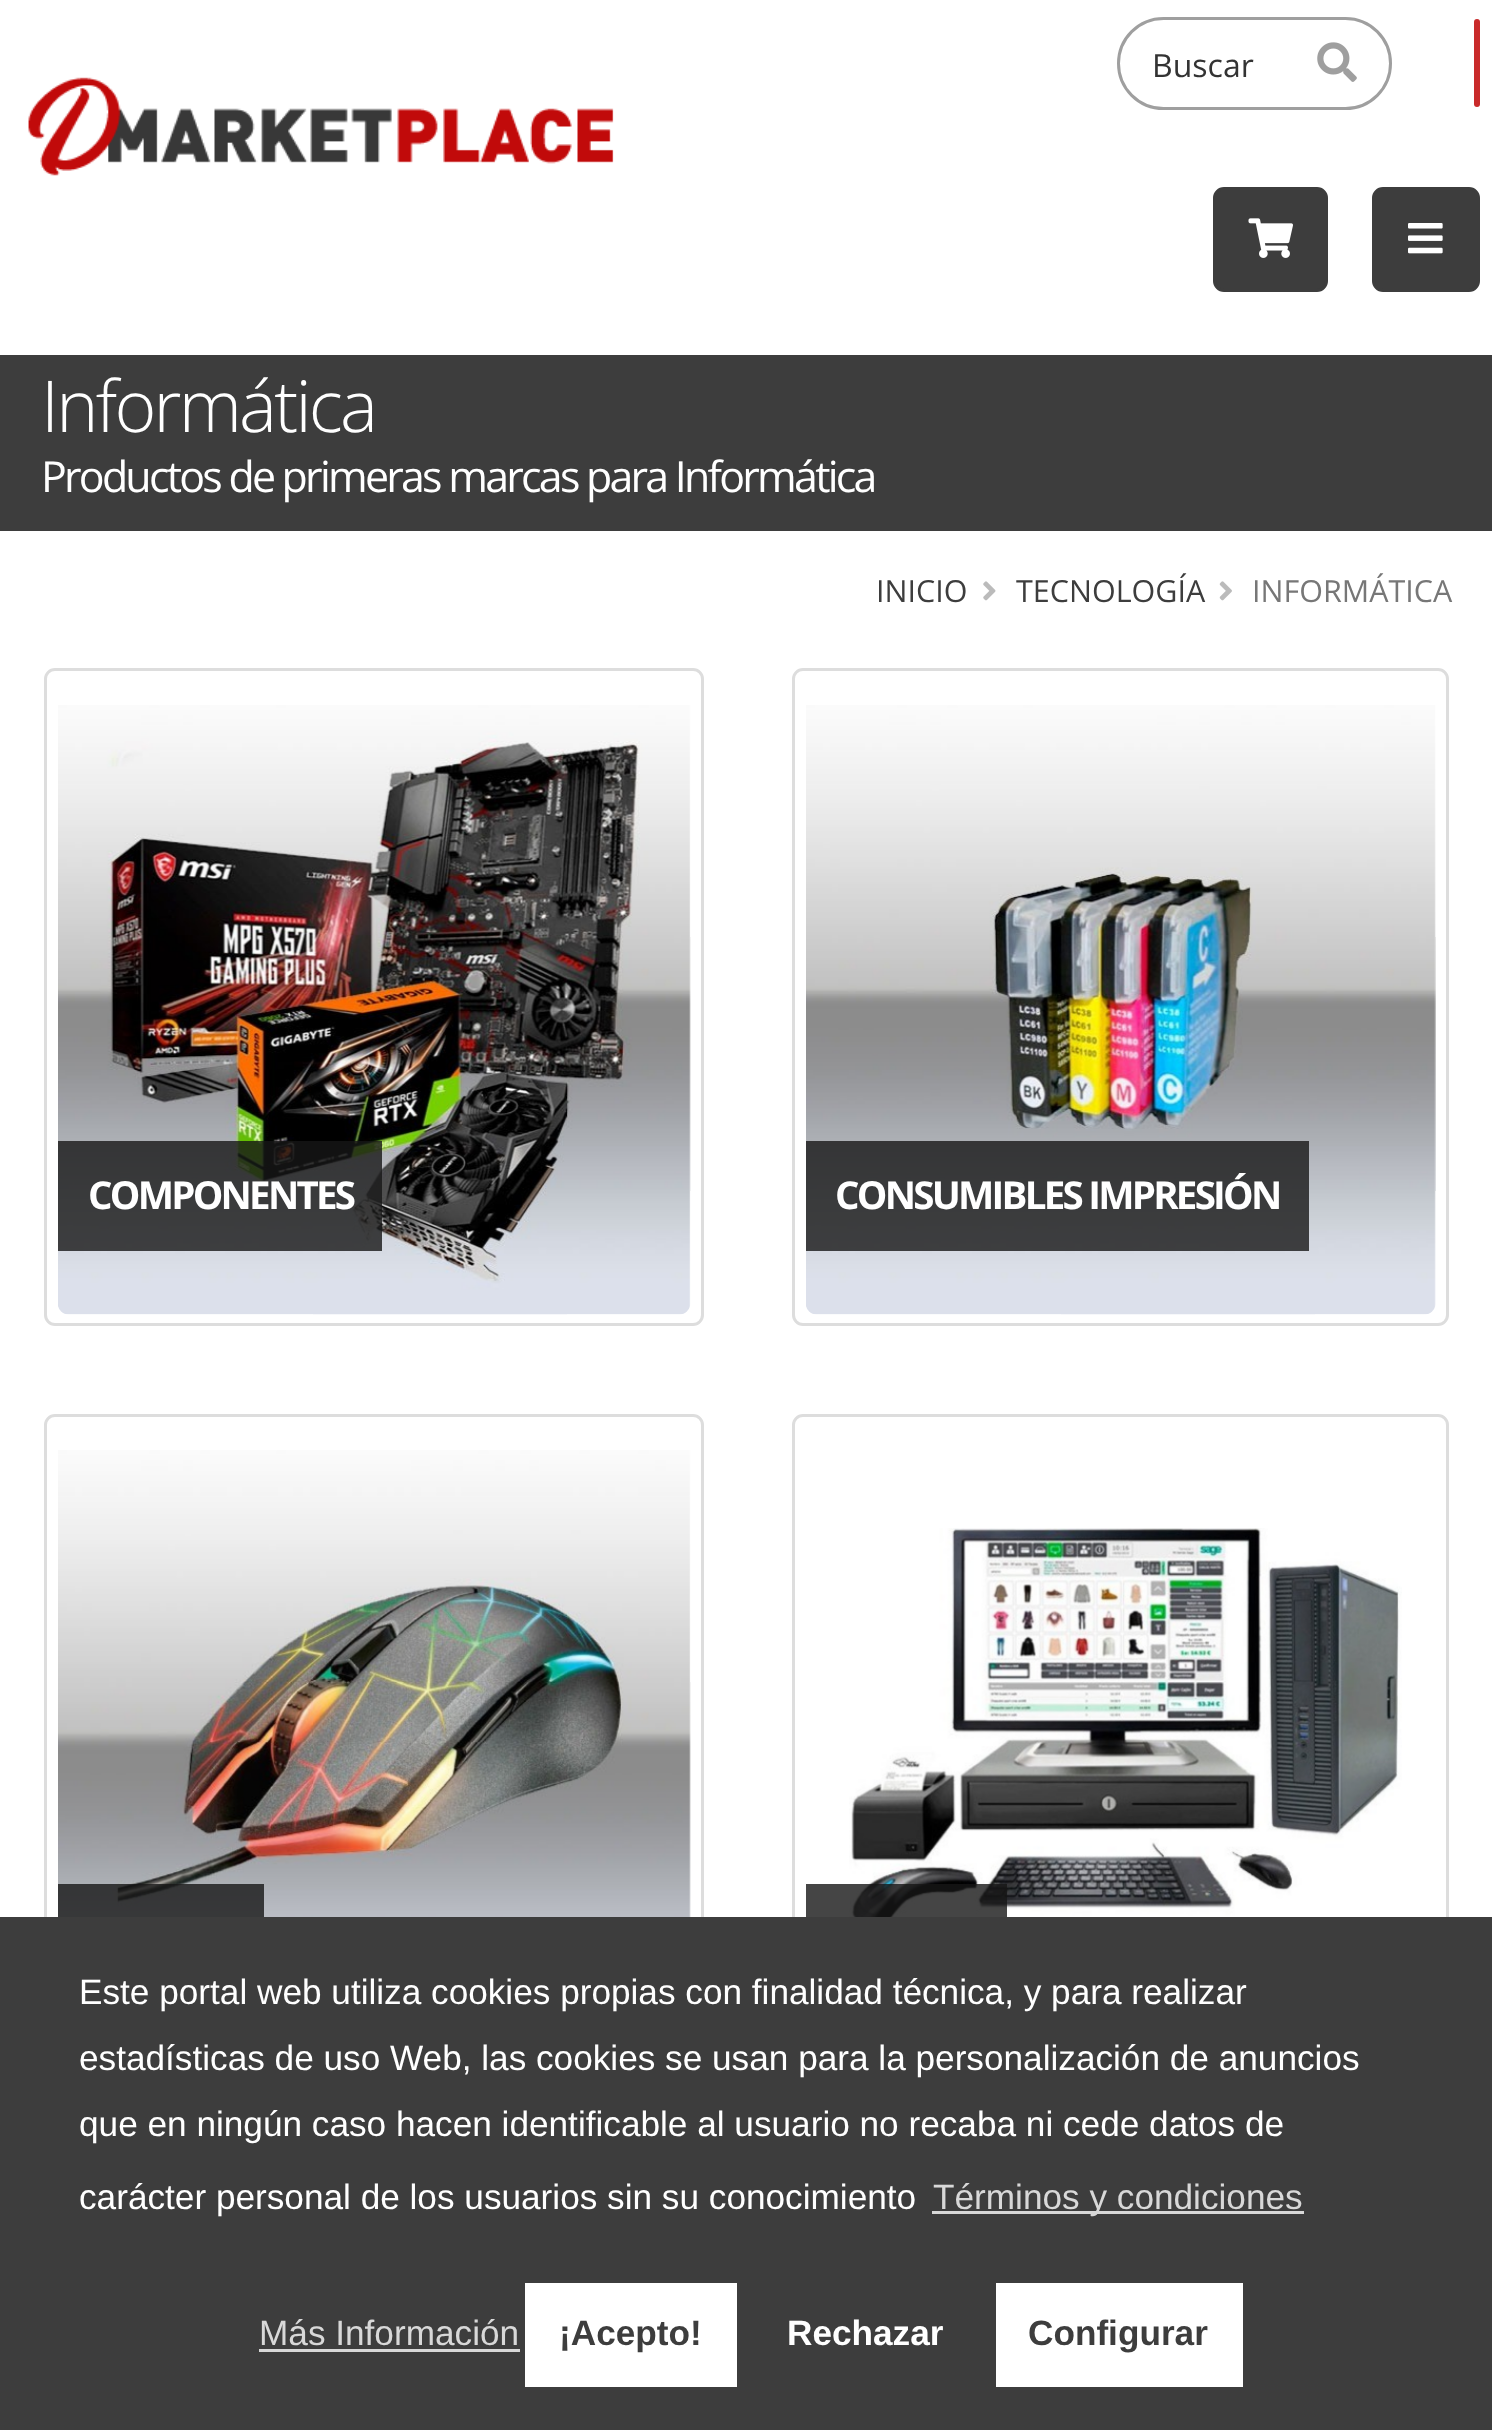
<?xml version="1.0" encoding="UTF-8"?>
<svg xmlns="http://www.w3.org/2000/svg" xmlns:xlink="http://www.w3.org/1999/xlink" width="1492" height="2430">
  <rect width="100%" height="100%" fill="#ffffff" />
  <rect x="1118.5" y="18.5" width="272" height="90" rx="45" fill="none" stroke="#9f9f9f" stroke-width="3" />
  <image x="1317" y="42" width="40" height="40" xlink:href="image1.png" />
  <rect x="1474" y="19" width="6" height="88" rx="3" fill="#c92a2a" />
  <rect x="1214.5" y="188.5" width="112" height="102" rx="9.5" fill="#3d3d3d" stroke="#3d3d3d" stroke-width="3" />
  <image x="1248" y="218" width="45" height="40" xlink:href="image2.png" />
  <rect x="1373.5" y="188.5" width="105" height="102" rx="9.5" fill="#3d3d3d" stroke="#3d3d3d" stroke-width="3" />
  <image x="1408" y="223" width="35" height="31" xlink:href="image3.png" />
  <image x="28" y="77" width="586" height="99" xlink:href="image4.png" />
  <rect y="355" width="1492" height="176" fill="#3d3d3d" />
  <image x="983" y="581" width="13" height="20" xlink:href="image5.png" />
  <image x="1219" y="581" width="13" height="20" xlink:href="image6.png" />
  <rect x="45.5" y="669.5" width="657" height="655" rx="9.5" fill="none" stroke="#dddddd" stroke-width="3" />
  <image x="58" y="705" width="633" height="610" xlink:href="image7.png" />
  <rect x="58" y="1141" width="324" height="110" fill="#171717" fill-opacity="0.8" />
  <rect x="793.5" y="669.5" width="654" height="655" rx="9.5" fill="none" stroke="#dddddd" stroke-width="3" />
  <image x="806" y="705" width="630" height="610" xlink:href="image8.png" />
  <rect x="806" y="1141" width="503" height="110" fill="#171717" fill-opacity="0.8" />
  <rect x="45.5" y="1415.5" width="657" height="651" rx="9.5" fill="none" stroke="#dddddd" stroke-width="3" />
  <image x="58" y="1450" width="633" height="467" xlink:href="image9.png" />
  <rect x="58" y="1884" width="206" height="33" fill="#171717" fill-opacity="0.8" />
  <rect x="793.5" y="1415.5" width="654" height="651" rx="9.5" fill="none" stroke="#dddddd" stroke-width="3" />
  <image x="849" y="1528" width="553" height="389" xlink:href="image10.png" />
  <rect x="806" y="1884" width="201" height="33" fill="#171717" fill-opacity="0.8" />
  <rect y="1917" width="1492" height="513" fill="#3d3d3d" />
  <rect x="932" y="2211" width="372" height="3" fill="#d8d8d8" />
  <rect x="259" y="2349" width="261" height="3" fill="#d8d8d8" />
  <rect x="525" y="2283" width="212" height="104" fill="#ffffff" />
  <rect x="996" y="2283" width="247" height="104" fill="#ffffff" />
  <text x="1152" y="77" style="font-family: Open Sans; font-size: 32px; fill: #333333">Buscar</text>
  <text x="41" y="432" style="font-family: Open Sans; font-size: 71.5px; font-weight: 300; letter-spacing: -2.75px; fill: #ffffff">Informática</text>
  <text x="41" y="492" style="font-family: Open Sans; font-size: 42.9px; letter-spacing: -2.75px; fill: #ffffff">Productos de primeras marcas para Informática</text>
  <text x="876" y="602" style="font-family: Open Sans; font-size: 30.5px; fill: #3d3d3d">INICIO</text>
  <text x="1016" y="602" style="font-family: Open Sans; font-size: 30.5px; fill: #3d3d3d">TECNOLOGÍA</text>
  <text x="1252" y="602" style="font-family: Open Sans; font-size: 30.5px; fill: #777777">INFORMÁTICA</text>
  <text x="88" y="1209" style="font-family: Open Sans; font-size: 38.5px; font-weight: bold; letter-spacing: -2.75px; fill: #ffffff">COMPONENTES</text>
  <text x="835" y="1209" style="font-family: Open Sans; font-size: 38.5px; font-weight: bold; letter-spacing: -2.75px; fill: #ffffff">CONSUMIBLES IMPRESIÓN</text>
  <text x="79" y="2004" style="font-family: Liberation Sans; font-size: 35.2px; fill: #ffffff">Este portal web utiliza cookies propias con finalidad técnica, y para realizar</text>
  <text x="79" y="2070" style="font-family: Liberation Sans; font-size: 35.2px; fill: #ffffff">estadísticas de uso Web, las cookies se usan para la personalización de anuncios</text>
  <text x="79" y="2136" style="font-family: Liberation Sans; font-size: 35.2px; fill: #ffffff">que en ningún caso hacen identificable al usuario no recaba ni cede datos de</text>
  <text x="79" y="2209" style="font-family: Liberation Sans; font-size: 35.2px; fill: #ffffff">carácter personal de los usuarios sin su conocimiento</text>
  <text x="933" y="2209" style="font-family: Liberation Sans; font-size: 35.2px; fill: #d8d8d8">Términos y condiciones</text>
  <text x="259" y="2345" style="font-family: Liberation Sans; font-size: 35.2px; fill: #d8d8d8">Más Información</text>
  <text x="559" y="2345" style="font-family: Liberation Sans; font-size: 35.2px; font-weight: bold; fill: #3d3d3d">¡Acepto!</text>
  <text x="787" y="2345" style="font-family: Liberation Sans; font-size: 35.2px; font-weight: bold; fill: #ffffff">Rechazar</text>
  <text x="1028" y="2345" style="font-family: Liberation Sans; font-size: 35.2px; font-weight: bold; fill: #3d3d3d">Configurar</text>
</svg>
